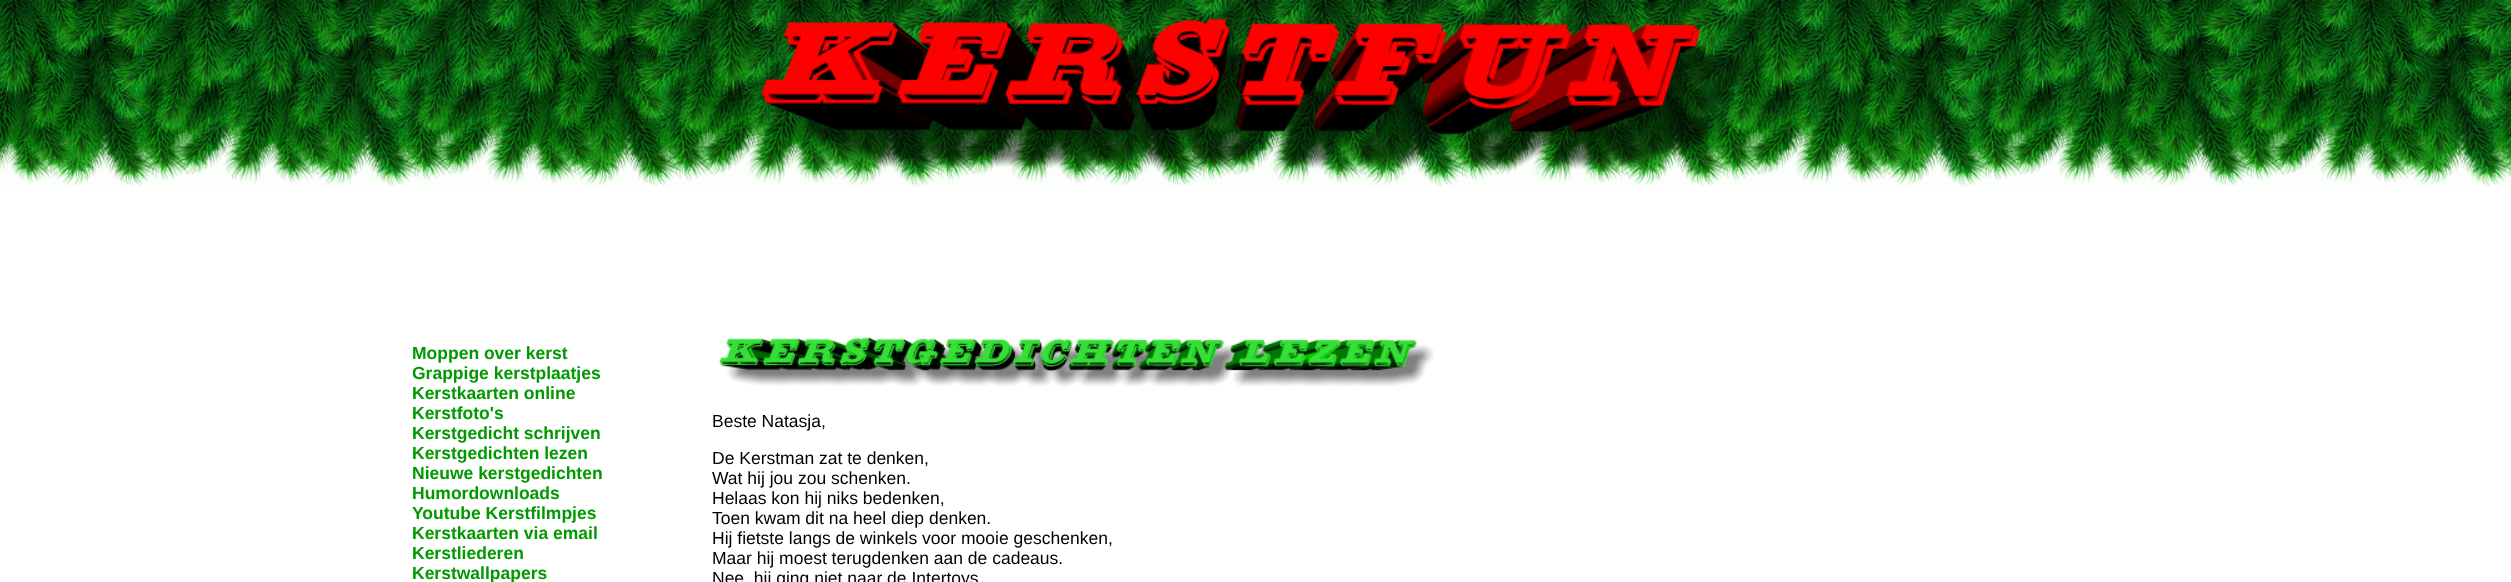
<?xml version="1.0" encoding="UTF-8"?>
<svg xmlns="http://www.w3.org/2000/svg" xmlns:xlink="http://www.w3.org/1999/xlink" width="2511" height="582">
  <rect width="100%" height="100%" fill="#ffffff" />
  <image x="0" y="0" width="2511" height="187" xlink:href="image1.png" />
  <image x="718" y="337" width="716" height="50" xlink:href="image2.png" />
  <text x="412" y="359" style="font-family: Liberation Sans; font-size: 17.5px; font-weight: bold; fill: #009900">Moppen over kerst</text>
  <text x="412" y="379" style="font-family: Liberation Sans; font-size: 17.5px; font-weight: bold; fill: #009900">Grappige kerstplaatjes</text>
  <text x="412" y="399" style="font-family: Liberation Sans; font-size: 17.5px; font-weight: bold; fill: #009900">Kerstkaarten online</text>
  <text x="412" y="419" style="font-family: Liberation Sans; font-size: 17.5px; font-weight: bold; fill: #009900">Kerstfoto's</text>
  <text x="412" y="439" style="font-family: Liberation Sans; font-size: 17.5px; font-weight: bold; fill: #009900">Kerstgedicht schrijven</text>
  <text x="412" y="459" style="font-family: Liberation Sans; font-size: 17.5px; font-weight: bold; fill: #009900">Kerstgedichten lezen</text>
  <text x="412" y="479" style="font-family: Liberation Sans; font-size: 17.5px; font-weight: bold; fill: #009900">Nieuwe kerstgedichten</text>
  <text x="412" y="499" style="font-family: Liberation Sans; font-size: 17.5px; font-weight: bold; fill: #009900">Humordownloads</text>
  <text x="412" y="519" style="font-family: Liberation Sans; font-size: 17.5px; font-weight: bold; fill: #009900">Youtube Kerstfilmpjes</text>
  <text x="412" y="539" style="font-family: Liberation Sans; font-size: 17.5px; font-weight: bold; fill: #009900">Kerstkaarten via email</text>
  <text x="412" y="559" style="font-family: Liberation Sans; font-size: 17.5px; font-weight: bold; fill: #009900">Kerstliederen</text>
  <text x="412" y="579" style="font-family: Liberation Sans; font-size: 17.5px; font-weight: bold; fill: #009900">Kerstwallpapers</text>
  <text x="712" y="427" style="font-family: Liberation Sans; font-size: 17.5px; fill: #000000">Beste Natasja,</text>
  <text x="712" y="464" style="font-family: Liberation Sans; font-size: 17.5px; fill: #000000">De Kerstman zat te denken,</text>
  <text x="712" y="484" style="font-family: Liberation Sans; font-size: 17.5px; fill: #000000">Wat hij jou zou schenken.</text>
  <text x="712" y="504" style="font-family: Liberation Sans; font-size: 17.5px; fill: #000000">Helaas kon hij niks bedenken,</text>
  <text x="712" y="524" style="font-family: Liberation Sans; font-size: 17.5px; fill: #000000">Toen kwam dit na heel diep denken.</text>
  <text x="712" y="544" style="font-family: Liberation Sans; font-size: 17.5px; fill: #000000">Hij fietste langs de winkels voor mooie geschenken,</text>
  <text x="712" y="564" style="font-family: Liberation Sans; font-size: 17.5px; fill: #000000">Maar hij moest terugdenken aan de cadeaus.</text>
  <text x="712" y="584" style="font-family: Liberation Sans; font-size: 17.5px; fill: #000000">Nee, hij ging niet naar de Intertoys</text>
</svg>
